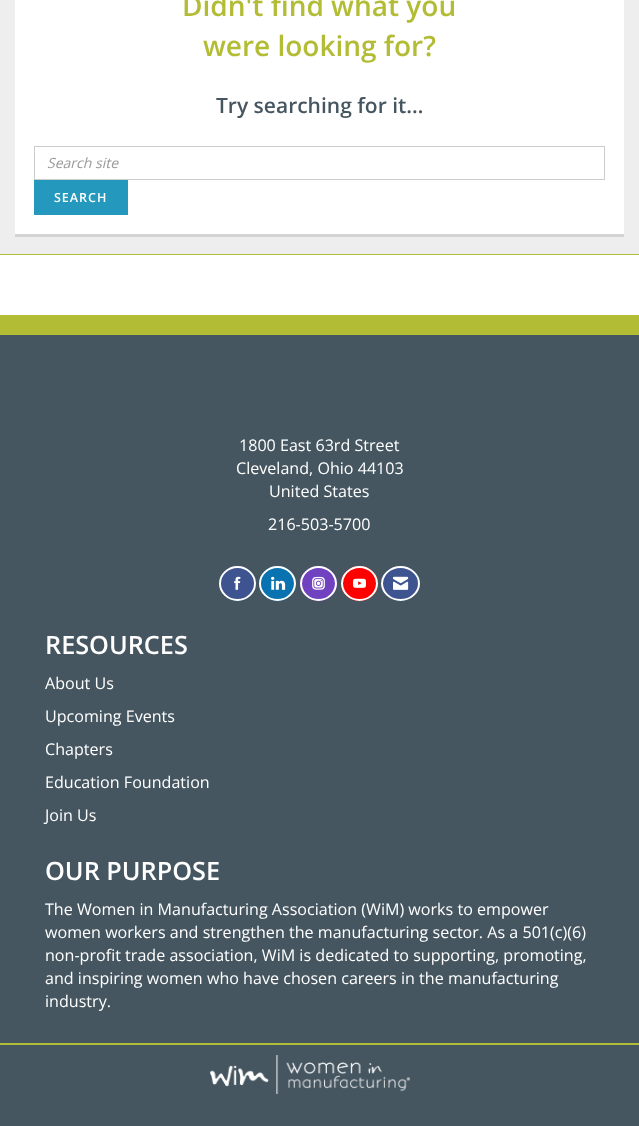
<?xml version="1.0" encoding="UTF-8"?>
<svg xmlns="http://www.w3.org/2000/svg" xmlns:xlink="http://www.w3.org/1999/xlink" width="639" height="1126">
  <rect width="100%" height="100%" fill="#ffffff" />
  <rect width="639" height="254" fill="#eeeeee" />
  <rect x="15" y="234" width="609" height="3" fill="#d4d4d4" />
  <rect x="15" width="609" height="234" fill="#ffffff" />
  <rect x="34.5" y="146.5" width="570" height="33" fill="none" stroke="#cccccc" />
  <rect x="34" y="180" width="94" height="35" fill="#2498bd" />
  <rect y="254" width="639" height="1" fill="#b3bc35" />
  <rect y="315" width="639" height="20" fill="#b3bc35" />
  <rect y="335" width="639" height="708" fill="#465660" />
  <ellipse cx="237.5" cy="583.5" rx="18.5" ry="17.5" fill="#3e5491" />
  <path d="M 237.5 567 c 9.5 0 17.5 7.5 17.5 16.5 c 0 9 -8 16.5 -17.5 16.5 c -9.5 0 -17.5 -7.5 -17.5 -16.5 c 0 -9 8 -16.5 17.5 -16.5 z" fill="none" stroke="#ffffff" stroke-width="2" />
  <image x="234" y="576" width="7" height="14" xlink:href="image1.png" />
  <ellipse cx="277.5" cy="583.5" rx="18.5" ry="17.5" fill="#0972b1" />
  <path d="M 277.5 567 c 9.5 0 17.5 7.5 17.5 16.5 c 0 9 -8 16.5 -17.5 16.5 c -9.5 0 -17.5 -7.5 -17.5 -16.5 c 0 -9 8 -16.5 17.5 -16.5 z" fill="none" stroke="#ffffff" stroke-width="2" />
  <image x="271" y="576" width="15" height="14" xlink:href="image2.png" />
  <ellipse cx="318.5" cy="583.5" rx="18.5" ry="17.5" fill="#7042c0" />
  <path d="M 318.5 567 c 9.5 0 17.5 7.5 17.5 16.5 c 0 9 -8 16.5 -17.5 16.5 c -9.5 0 -17.5 -7.5 -17.5 -16.5 c 0 -9 8 -16.5 17.5 -16.5 z" fill="none" stroke="#ffffff" stroke-width="2" />
  <image x="312" y="576" width="13" height="14" xlink:href="image3.png" />
  <ellipse cx="359.5" cy="583.5" rx="18.5" ry="17.5" fill="#ff0000" />
  <path d="M 359.5 567 c 9.5 0 17.5 7.5 17.5 16.5 c 0 9 -8 16.5 -17.5 16.5 c -9.5 0 -17.5 -7.5 -17.5 -16.5 c 0 -9 8 -16.5 17.5 -16.5 z" fill="none" stroke="#ffffff" stroke-width="2" />
  <image x="353" y="578" width="13" height="10" xlink:href="image4.png" />
  <ellipse cx="400.5" cy="583.5" rx="19.5" ry="17.5" fill="#3e5491" />
  <path d="M 400.5 567 c 10 0 18.5 7.5 18.5 16.5 c 0 9 -8.5 16.5 -18.5 16.5 c -10 0 -18.5 -7.5 -18.5 -16.5 c 0 -9 8.5 -16.5 18.5 -16.5 z" fill="none" stroke="#ffffff" stroke-width="2" />
  <image x="393" y="576" width="16" height="14" xlink:href="image5.png" />
  <rect y="1045" width="639" height="81" fill="#465660" />
  <rect y="1043" width="639" height="2" fill="#b3bc35" />
  <image x="210" y="1055" width="200" height="39" xlink:href="image6.png" />
  <text x="182" y="16" style="font-family: Open Sans; font-size: 28px; font-weight: 600; fill: #b3bc35">Didn't find what you</text>
  <text x="203" y="56" style="font-family: Open Sans; font-size: 28px; font-weight: 600; fill: #b3bc35">were looking for?</text>
  <text x="216" y="113" style="font-family: Open Sans; font-size: 21px; font-weight: 600; fill: #465660">Try searching for it…</text>
  <text x="47" y="168" style="font-family: Open Sans; font-size: 14px; font-style: italic; fill: #999999">Search site</text>
  <text x="54" y="202" style="font-family: Open Sans; font-size: 12.5px; font-weight: 600; letter-spacing: 1px; fill: #ffffff">SEARCH</text>
  <text x="239" y="451" style="font-family: Open Sans; font-size: 16.1px; fill: #ffffff">1800 East 63rd Street</text>
  <text x="236" y="474" style="font-family: Open Sans; font-size: 16.1px; fill: #ffffff">Cleveland, Ohio 44103</text>
  <text x="269" y="497" style="font-family: Open Sans; font-size: 16.1px; fill: #ffffff">United States</text>
  <text x="268" y="530" style="font-family: Open Sans; font-size: 16.1px; fill: #ffffff">216-503-5700</text>
  <text x="45" y="654" style="font-family: Open Sans; font-size: 25.25px; font-weight: 600; fill: #ffffff">RESOURCES</text>
  <text x="45" y="689" style="font-family: Open Sans; font-size: 16.1px; fill: #ffffff">About Us</text>
  <text x="45" y="722" style="font-family: Open Sans; font-size: 16.1px; fill: #ffffff">Upcoming Events</text>
  <text x="45" y="755" style="font-family: Open Sans; font-size: 16.1px; fill: #ffffff">Chapters</text>
  <text x="45" y="788" style="font-family: Open Sans; font-size: 16.1px; fill: #ffffff">Education Foundation</text>
  <text x="45" y="821" style="font-family: Open Sans; font-size: 16.1px; fill: #ffffff">Join Us</text>
  <text x="45" y="880" style="font-family: Open Sans; font-size: 25.25px; font-weight: 600; fill: #ffffff">OUR PURPOSE</text>
  <text x="45" y="915" style="font-family: Open Sans; font-size: 16.1px; fill: #ffffff">The Women in Manufacturing Association (WiM) works to empower</text>
  <text x="45" y="938" style="font-family: Open Sans; font-size: 16.1px; fill: #ffffff">women workers and strengthen the manufacturing sector. As a 501(c)(6)</text>
  <text x="45" y="961" style="font-family: Open Sans; font-size: 16.1px; fill: #ffffff">non-profit trade association, WiM is dedicated to supporting, promoting,</text>
  <text x="45" y="984" style="font-family: Open Sans; font-size: 16.1px; fill: #ffffff">and inspiring women who have chosen careers in the manufacturing</text>
  <text x="45" y="1007" style="font-family: Open Sans; font-size: 16.1px; fill: #ffffff">industry.</text>
</svg>
